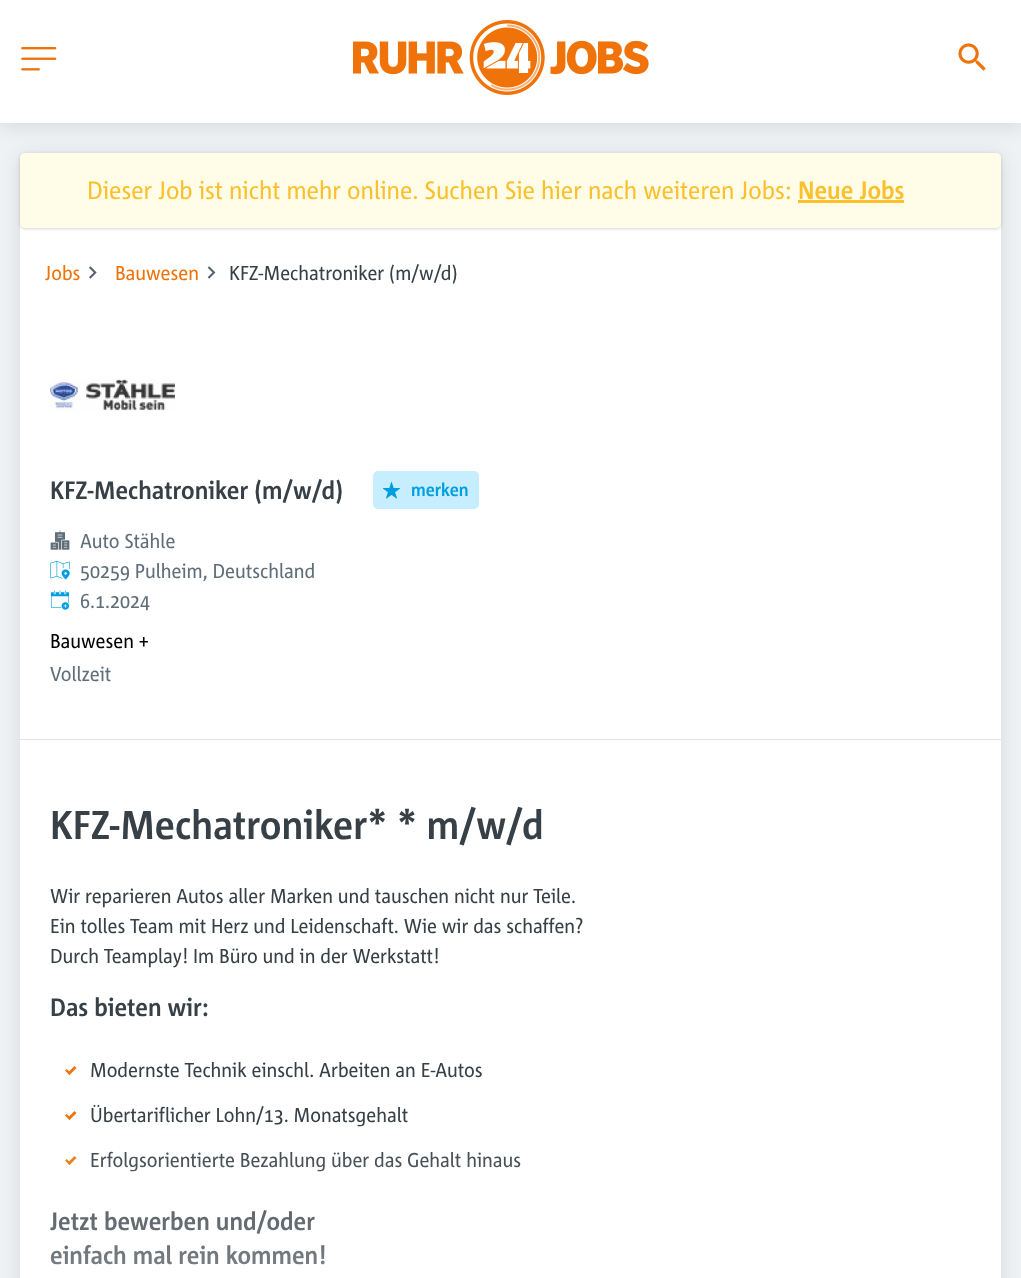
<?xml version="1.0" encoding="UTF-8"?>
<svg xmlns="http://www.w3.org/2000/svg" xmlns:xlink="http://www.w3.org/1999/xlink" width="1021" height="1278">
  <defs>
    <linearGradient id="g1" gradientUnits="userSpaceOnUse" x1="511" y1="1119" x2="511" y2="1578"><stop offset="0" stop-color="#ffffff" stop-opacity="0" /><stop offset="1" stop-color="#ffffff" /></linearGradient>
  </defs>
  <rect width="100%" height="100%" fill="#eff2f4" />
  <rect y="4" width="1021" height="122" fill="#000000" fill-opacity="0.1" filter="blur(9.5px)" />
  <rect width="1021" height="123" fill="#ffffff" />
  <image x="21" y="47" width="36" height="24" xlink:href="image1.png" />
  <image x="353" y="20" width="296" height="75" xlink:href="image2.png" />
  <image x="958" y="43" width="28" height="28" xlink:href="image3.png" />
  <rect x="20" y="156" width="981" height="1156" rx="5" fill="#000000" fill-opacity="0.1" filter="blur(9.5px)" />
  <rect x="20" y="153" width="981" height="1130" rx="5" fill="#ffffff" />
  <rect x="20" y="154" width="981" height="75" rx="5" fill="#000000" fill-opacity="0.06" filter="blur(1px)" />
  <rect x="20" y="154" width="981" height="75" rx="5" fill="#000000" fill-opacity="0.1" filter="blur(2px)" />
  <rect x="21.5" y="154.5" width="978" height="72" rx="3.5" fill="#fffde7" stroke="#fffde7" stroke-width="3" />
  <rect x="798" y="200" width="106" height="3" fill="#fbc02d" />
  <image x="89" y="266" width="8" height="13" xlink:href="image4.png" />
  <image x="207" y="266" width="9" height="13" xlink:href="image5.png" />
  <rect x="20" y="739" width="981" height="1" fill="#dfe4ea" />
  <image x="50" y="379" width="125" height="32" xlink:href="image6.png" />
  <rect x="373" y="471" width="106" height="38" rx="5" fill="#c6eeff" />
  <image x="383" y="481" width="18" height="18" xlink:href="image7.png" />
  <image x="50" y="530" width="20" height="20" xlink:href="image8.png" />
  <image x="50" y="561" width="20" height="19" xlink:href="image9.png" />
  <image x="50" y="590" width="20" height="20" xlink:href="image10.png" />
  <path d="M 74.5 1066 l 2 2 l -7 7 l -2 -2 z" fill="#ee730b" />
  <path d="M 66.5 1069 l 4.5 4 l -1.5 2 l -4.5 -4.5 z" fill="#ee730b" />
  <path d="M 74.5 1111 l 2 2 l -7 7 l -2 -2 z" fill="#ee730b" />
  <path d="M 66.5 1114 l 4.5 4 l -1.5 2 l -4.5 -4.5 z" fill="#ee730b" />
  <path d="M 74.5 1156 l 2 2 l -7 7 l -2 -2 z" fill="#ee730b" />
  <path d="M 66.5 1159 l 4.5 4 l -1.5 2 l -4.5 -4.5 z" fill="#ee730b" />
  <text x="87" y="199" style="font-family: 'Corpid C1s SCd'; font-size: 25px; fill: #fbc02d">Dieser Job ist nicht mehr online. Suchen Sie hier nach weiteren Jobs:</text>
  <text x="798" y="199" style="font-family: 'Corpid C1s SCd'; font-size: 25px; font-weight: bold; fill: #fbc02d">Neue Jobs</text>
  <text x="45" y="280" style="font-family: 'Corpid C1s SCd'; font-size: 20px; fill: #ee730b">Jobs</text>
  <text x="115" y="280" style="font-family: 'Corpid C1s SCd'; font-size: 20px; fill: #ee730b">Bauwesen</text>
  <text x="229" y="280" style="font-family: 'Corpid C1s SCd'; font-size: 20px; fill: #374047">KFZ-Mechatroniker (m/w/d)</text>
  <text x="50" y="499" style="font-family: 'Corpid C1s SCd'; font-size: 25px; font-weight: bold; fill: #374047">KFZ-Mechatroniker (m/w/d)</text>
  <text x="411" y="496" style="font-family: 'Corpid C1s SCd'; font-size: 18px; font-weight: bold; fill: #009ee0">merken</text>
  <text x="80" y="548" style="font-family: 'Corpid C1s SCd'; font-size: 20px; fill: #5f6e78">Auto Stähle</text>
  <text x="80" y="578" style="font-family: 'Corpid C1s SCd'; font-size: 20px; fill: #5f6e78">50259 Pulheim, Deutschland</text>
  <text x="80" y="608" style="font-family: 'Corpid C1s SCd'; font-size: 20px; fill: #5f6e78">6.1.2024</text>
  <text x="50" y="648" style="font-family: 'Corpid C1s SCd'; font-size: 20px; fill: #000000">Bauwesen +</text>
  <text x="50" y="681" style="font-family: 'Corpid C1s SCd'; font-size: 20px; fill: #5f6e78">Vollzeit</text>
  <text x="50" y="839" style="font-family: 'Corpid C1s SCd'; font-size: 40px; font-weight: bold; fill: #374047">KFZ-Mechatroniker* * m/w/d</text>
  <text x="50" y="903" style="font-family: 'Corpid C1s SCd'; font-size: 20px; fill: #374047">Wir reparieren Autos aller Marken und tauschen nicht nur Teile.</text>
  <text x="50" y="933" style="font-family: 'Corpid C1s SCd'; font-size: 20px; fill: #374047">Ein tolles Team mit Herz und Leidenschaft. Wie wir das schaffen?</text>
  <text x="50" y="963" style="font-family: 'Corpid C1s SCd'; font-size: 20px; fill: #374047">Durch Teamplay! Im Büro und in der Werkstatt!</text>
  <text x="50" y="1016" style="font-family: 'Corpid C1s SCd'; font-size: 25px; font-weight: bold; fill: #374047">Das bieten wir:</text>
  <text x="90" y="1077" style="font-family: 'Corpid C1s SCd'; font-size: 20px; fill: #374047">Modernste Technik einschl. Arbeiten an E-Autos</text>
  <text x="90" y="1122" style="font-family: 'Corpid C1s SCd'; font-size: 20px; fill: #374047">Übertariflicher Lohn/13. Monatsgehalt</text>
  <text x="90" y="1167" style="font-family: 'Corpid C1s SCd'; font-size: 20px; fill: #374047">Erfolgsorientierte Bezahlung über das Gehalt hinaus</text>
  <text x="50" y="1230" style="font-family: 'Corpid C1s SCd'; font-size: 25px; font-weight: bold; fill: #374047">Jetzt bewerben und/oder</text>
  <text x="50" y="1264" style="font-family: 'Corpid C1s SCd'; font-size: 25px; font-weight: bold; fill: #374047">einfach mal rein kommen!</text>
  <rect x="50" y="1152" width="471" height="113" fill="url(#g1)" />
</svg>
